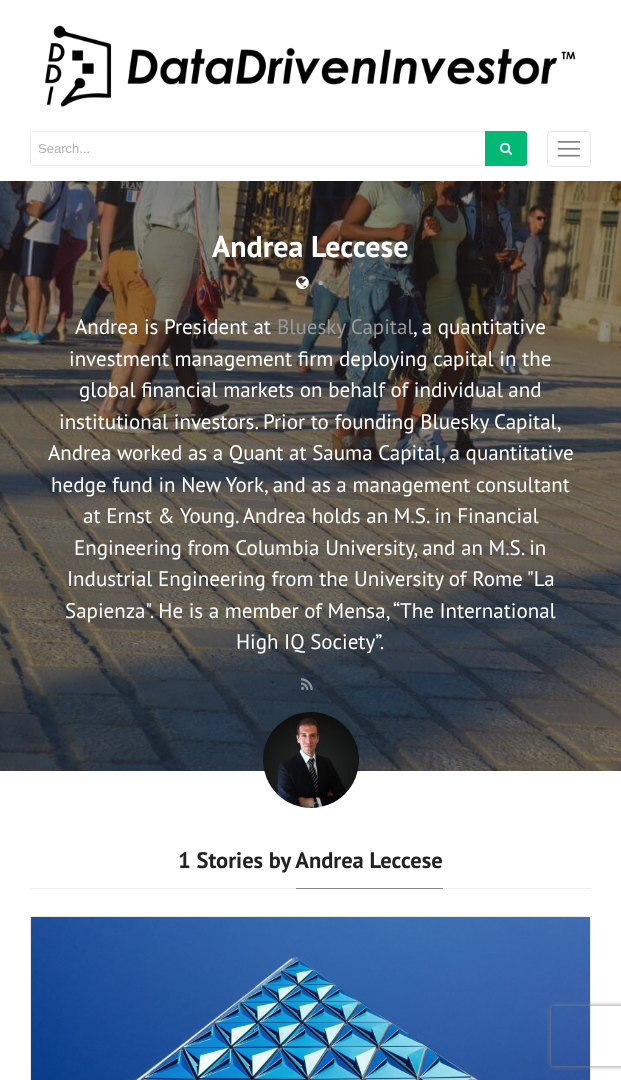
<?xml version="1.0" encoding="UTF-8"?>
<svg xmlns="http://www.w3.org/2000/svg" xmlns:xlink="http://www.w3.org/1999/xlink" width="621" height="1080">
  <defs>
    <clipPath id="clip1"><path d="M 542 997 h 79 v 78 h -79 z m 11 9 h 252 c 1 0 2 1 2 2 v 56 c 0 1 -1 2 -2 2 h -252 c -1 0 -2 -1 -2 -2 v -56 c 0 -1 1 -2 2 -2 z" clip-rule="evenodd" /></clipPath>
  </defs>
  <rect width="100%" height="100%" fill="#ffffff" />
  <image x="44" y="25" width="532" height="82" xlink:href="image1.png" />
  <path d="M 33 131.5 h 456.5 v 34 h -456.5 c -1.5 0 -2.5 -1 -2.5 -2.5 v -29 c 0 -1.5 1 -2.5 2.5 -2.5 z" fill="none" stroke="#eeeeee" />
  <path d="M 485 131 h 39 c 1.5 0 3 1.5 3 3 v 29 c 0 1.5 -1.5 3 -3 3 h -39 z" fill="#02b875" />
  <image x="500" y="142" width="12" height="13" xlink:href="image2.png" />
  <rect x="547.5" y="131.5" width="43" height="35" rx="3.5" fill="none" stroke="#e6e6e6" />
  <image x="557" y="141" width="23" height="16" xlink:href="image3.png" />
  <image x="0" y="181" width="621" height="590" xlink:href="image4.png" />
  <image x="296" y="276" width="13" height="14" xlink:href="image5.png" />
  <image x="301" y="678" width="12" height="12" xlink:href="image6.png" />
  <image x="263" y="712" width="96" height="96" xlink:href="image7.png" />
  <rect x="30" y="888" width="561" height="1" fill="#eeeeee" />
  <rect x="296" y="888" width="147" height="1" fill="#858585" />
  <rect x="30.5" y="916.5" width="560" height="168" rx="3.5" fill="none" stroke="#e8e8e8" />
  <image x="31" y="917" width="559" height="163" xlink:href="image8.png" />
  <g clip-path="url(#clip1)">
    <rect x="551" y="1006" width="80" height="60" rx="2" fill="#808080" filter="blur(2.5px)" />
  </g>
  <text x="38" y="153" style="font-family: Liberation Sans; font-size: 13px; fill: #b2b2b2">Search...</text>
  <text x="212" y="257" style="font-family: PT Sans; font-size: 30px; font-weight: bold; fill: #ffffff">Andrea Leccese</text>
  <text x="317" y="288" style="font-family: PT Sans; font-size: 16px; fill: #aaacab">•</text>
  <text x="75" y="334" style="font-family: PT Sans; font-size: 21px; fill: #ffffff">Andrea is President at</text>
  <text x="277" y="334" style="font-family: PT Sans; font-size: 21px; fill: #999b9a">Bluesky Capital</text>
  <text x="413" y="334" style="font-family: PT Sans; font-size: 21px; fill: #ffffff">, a quantitative</text>
  <text x="69" y="366" style="font-family: PT Sans; font-size: 21px; fill: #ffffff">investment management firm deploying capital in the</text>
  <text x="79" y="397" style="font-family: PT Sans; font-size: 21px; fill: #ffffff">global financial markets on behalf of individual and</text>
  <text x="59" y="429" style="font-family: PT Sans; font-size: 21px; fill: #ffffff">institutional investors. Prior to founding Bluesky Capital,</text>
  <text x="48" y="460" style="font-family: PT Sans; font-size: 21px; fill: #ffffff">Andrea worked as a Quant at Sauma Capital, a quantitative</text>
  <text x="51" y="492" style="font-family: PT Sans; font-size: 21px; fill: #ffffff">hedge fund in New York, and as a management consultant</text>
  <text x="83" y="523" style="font-family: PT Sans; font-size: 21px; fill: #ffffff">at Ernst &amp; Young. Andrea holds an M.S. in Financial</text>
  <text x="74" y="555" style="font-family: PT Sans; font-size: 21px; fill: #ffffff">Engineering from Columbia University, and an M.S. in</text>
  <text x="67" y="586" style="font-family: PT Sans; font-size: 21px; fill: #ffffff">Industrial Engineering from the University of Rome "La</text>
  <text x="65" y="618" style="font-family: PT Sans; font-size: 21px; fill: #ffffff">Sapienza". He is a member of Mensa, “The International</text>
  <text x="236" y="649" style="font-family: PT Sans; font-size: 21px; fill: #ffffff">High IQ Society”.</text>
  <text x="178" y="868" style="font-family: PT Sans; font-size: 22.5px; font-weight: bold; fill: #222222">1 Stories by Andrea Leccese</text>
</svg>
